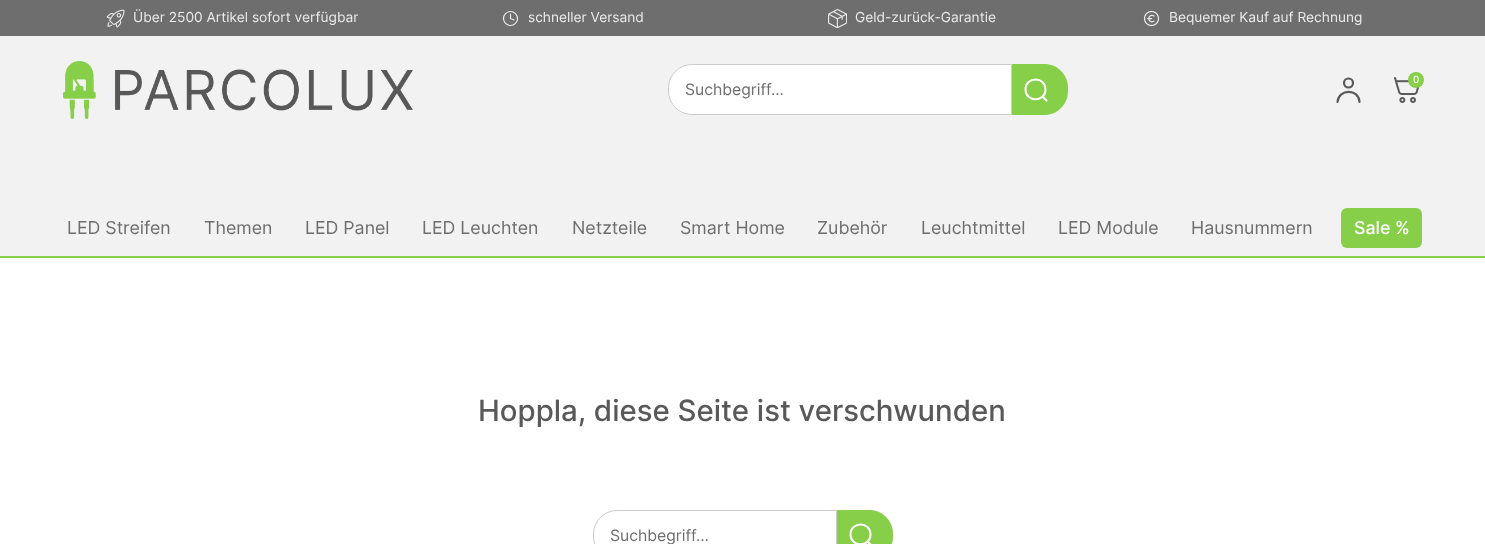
<?xml version="1.0" encoding="UTF-8"?>
<svg xmlns="http://www.w3.org/2000/svg" xmlns:xlink="http://www.w3.org/1999/xlink" width="1485" height="544">
  <rect width="100%" height="100%" fill="#ffffff" />
  <rect width="1485" height="36" fill="#6e6e6e" />
  <image x="106" y="9" width="19" height="19" xlink:href="image1.png" />
  <path d="M 510.5 14 v 4.5 l 3.5 1.5" fill="none" stroke="#ebebeb" stroke-width="1.2" stroke-linecap="round" stroke-linejoin="round" />
  <circle cx="510.5" cy="18.5" r="7" fill="none" stroke="#ebebeb" stroke-width="1.2" />
  <image x="828" y="9" width="19" height="19" xlink:href="image2.png" />
  <image x="1143" y="10" width="17" height="17" xlink:href="image3.png" />
  <rect y="36" width="1485" height="220" fill="#f2f2f2" />
  <rect y="256" width="1485" height="2" fill="#87cf49" />
  <image x="63" y="61" width="350" height="58" xlink:href="image4.png" />
  <circle cx="1348.5" cy="83" r="4.5" fill="none" stroke="#595959" stroke-width="2.2" />
  <path d="M 1359.5 102 c -0.5 -13.5 -21 -13.5 -22 0" fill="none" stroke="#595959" stroke-width="2.2" stroke-linecap="round" stroke-linejoin="round" />
  <image x="1394" y="77" width="26" height="26" xlink:href="image5.png" />
  <circle cx="1416" cy="80" r="8" fill="#87cf49" />
  <path d="M 692 64.5 h 319.5 v 50 h -319.5 c -13 0 -23.5 -10.5 -23.5 -23.5 v -3 c 0 -13 10.5 -23.5 23.5 -23.5 z" fill="#ffffff" stroke="#cccccc" />
  <path d="M 1012 64 h 32 c 13.5 0 24 10.5 24 24 v 3 c 0 13.5 -10.5 24 -24 24 h -32 z" fill="#87cf49" />
  <path d="M 1042.5 96.5 l 4 4 m -1 -11 c 0 13 -20 13 -20 0 c 0 -13.5 20 -13.5 20 0" fill="none" stroke="#ffffff" stroke-width="2" stroke-linecap="round" stroke-linejoin="round" />
  <rect x="1341" y="208" width="81" height="40" rx="6" fill="#87cf49" />
  <path d="M 617 510.5 h 219.5 v 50 h -219.5 c -13 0 -23.5 -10.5 -23.5 -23.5 v -3 c 0 -13 10.5 -23.5 23.5 -23.5 z" fill="none" stroke="#cccccc" />
  <path d="M 837 510 h 32 c 13.5 0 24 10.5 24 24 v 3 c 0 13.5 -10.5 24 -24 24 h -32 z" fill="#87cf49" />
  <path d="M 867.5 541.5 l 4 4 m -1 -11 c 0 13 -20 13 -20 0 c 0 -13.5 20 -13.5 20 0" fill="none" stroke="#ffffff" stroke-width="2" stroke-linecap="round" stroke-linejoin="round" />
  <text x="133" y="22" style="font-family: Inter; font-size: 13.75px; fill: #ebebeb">Über 2500 Artikel sofort verfügbar</text>
  <text x="528" y="22" style="font-family: Inter; font-size: 13.75px; fill: #ebebeb">schneller Versand</text>
  <text x="855" y="22" style="font-family: Inter; font-size: 13.75px; fill: #ebebeb">Geld-zurück-Garantie</text>
  <text x="1169" y="22" style="font-family: Inter; font-size: 13.75px; fill: #ebebeb">Bequemer Kauf auf Rechnung</text>
  <text x="1413" y="83" style="font-family: Inter; font-size: 10px; fill: #ffffff">0</text>
  <text x="685" y="95" style="font-family: Inter; font-size: 15.75px; fill: #6e6e6e">Suchbegriff...</text>
  <text x="67" y="234" style="font-family: Inter; font-size: 17.75px; fill: #6e6e6e">LED Streifen</text>
  <text x="204" y="234" style="font-family: Inter; font-size: 17.75px; fill: #6e6e6e">Themen</text>
  <text x="305" y="234" style="font-family: Inter; font-size: 17.75px; fill: #6e6e6e">LED Panel</text>
  <text x="422" y="234" style="font-family: Inter; font-size: 17.75px; fill: #6e6e6e">LED Leuchten</text>
  <text x="572" y="234" style="font-family: Inter; font-size: 17.75px; fill: #6e6e6e">Netzteile</text>
  <text x="680" y="234" style="font-family: Inter; font-size: 17.75px; fill: #6e6e6e">Smart Home</text>
  <text x="817" y="234" style="font-family: Inter; font-size: 17.75px; fill: #6e6e6e">Zubehör</text>
  <text x="921" y="234" style="font-family: Inter; font-size: 17.75px; fill: #6e6e6e">Leuchtmittel</text>
  <text x="1058" y="234" style="font-family: Inter; font-size: 17.75px; fill: #6e6e6e">LED Module</text>
  <text x="1191" y="234" style="font-family: Inter; font-size: 17.75px; fill: #6e6e6e">Hausnummern</text>
  <text x="1354" y="234" style="font-family: Inter; font-size: 17.75px; font-weight: 500; fill: #ffffff">Sale %</text>
  <text x="478" y="421" style="font-family: Inter; font-size: 29.4px; font-weight: 500; fill: #595959">Hoppla, diese Seite ist verschwunden</text>
  <text x="610" y="541" style="font-family: Inter; font-size: 15.75px; fill: #6e6e6e">Suchbegriff...</text>
</svg>
